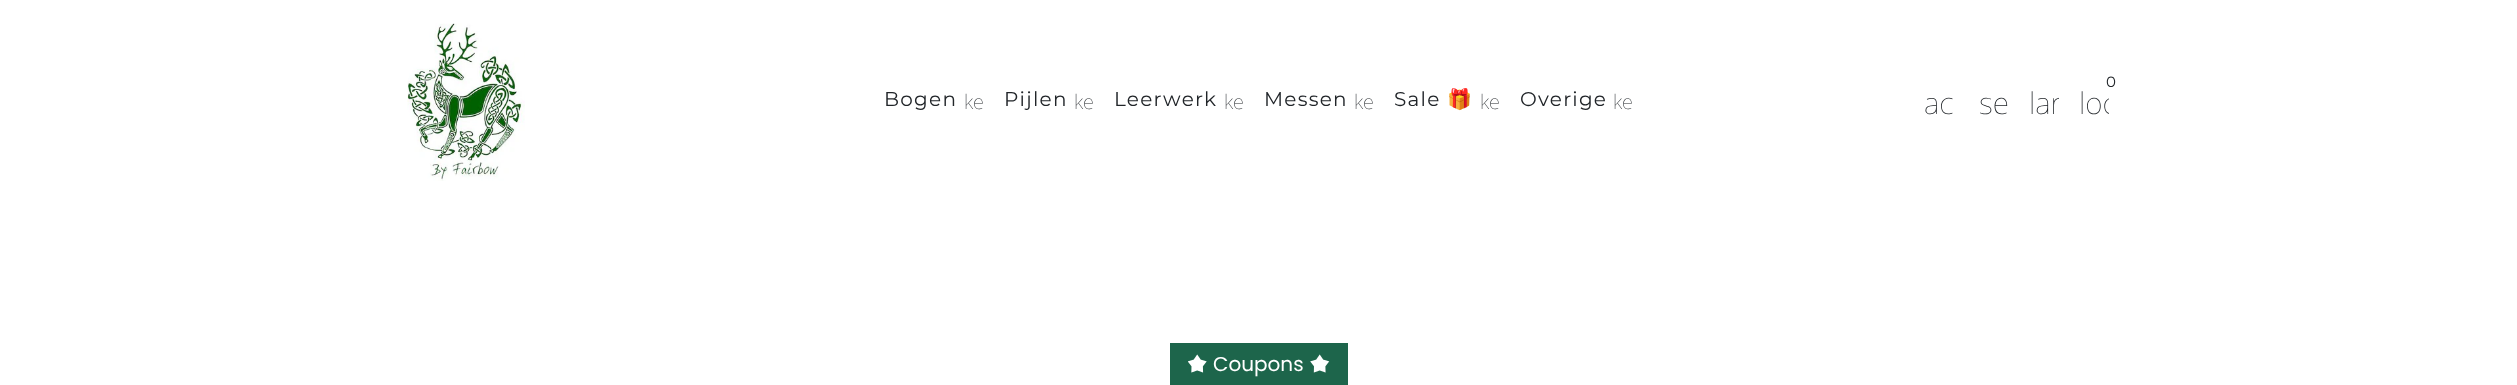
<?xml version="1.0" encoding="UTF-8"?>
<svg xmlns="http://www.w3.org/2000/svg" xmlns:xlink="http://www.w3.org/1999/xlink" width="2517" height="385">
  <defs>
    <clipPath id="clip1"><rect x="2029" y="85" width="30" height="30" /></clipPath>
    <clipPath id="clip2"><rect x="2079" y="85" width="30" height="30" /></clipPath>
  </defs>
  <rect width="100%" height="100%" fill="#ffffff" />
  <image x="407" y="23" width="118" height="158" xlink:href="image1.png" />
  <rect x="1170" y="343" width="178" height="42" fill="#1d654b" />
  <image x="1188" y="354" width="19" height="19" xlink:href="image2.png" />
  <image x="1310" y="354" width="20" height="19" xlink:href="image3.png" />
  <text x="884" y="106" style="font-family: Montserrat; font-size: 20px; letter-spacing: 1.25px; fill: #212529">Bogen</text>
  <text x="964" y="109" style="font-family: Noto Sans; font-size: 20px; font-weight: 100; fill: #212529">ke</text>
  <text x="1004" y="106" style="font-family: Montserrat; font-size: 20px; letter-spacing: 1.25px; fill: #212529">Pijlen</text>
  <text x="1074" y="109" style="font-family: Noto Sans; font-size: 20px; font-weight: 100; fill: #212529">ke</text>
  <text x="1114" y="106" style="font-family: Montserrat; font-size: 20px; letter-spacing: 1.25px; fill: #212529">Leerwerk</text>
  <text x="1224" y="109" style="font-family: Noto Sans; font-size: 20px; font-weight: 100; fill: #212529">ke</text>
  <text x="1264" y="106" style="font-family: Montserrat; font-size: 20px; letter-spacing: 1.25px; fill: #212529">Messen</text>
  <text x="1354" y="109" style="font-family: Noto Sans; font-size: 20px; font-weight: 100; fill: #212529">ke</text>
  <text x="1394" y="106" style="font-family: Montserrat; font-size: 20px; letter-spacing: 1.25px; fill: #212529">Sale</text>
  <text x="1447" y="106" style="font-family: Noto Color Emoji; font-size: 20px; letter-spacing: 1.25px; fill: #212529">🎁</text>
  <text x="1480" y="109" style="font-family: Noto Sans; font-size: 20px; font-weight: 100; fill: #212529">ke</text>
  <text x="1520" y="106" style="font-family: Montserrat; font-size: 20px; letter-spacing: 1.25px; fill: #212529">Overige</text>
  <text x="1613" y="109" style="font-family: Noto Sans; font-size: 20px; font-weight: 100; fill: #212529">ke</text>
  <text x="1924" y="114" style="font-family: Noto Sans; font-size: 30px; font-weight: 100; fill: #212529">ac</text>
  <text x="1979" y="114" style="font-family: Noto Sans; font-size: 30px; font-weight: 100; fill: #212529">se</text>
  <g clip-path="url(#clip1)">
    <text x="2029" y="114" style="font-family: Noto Sans; font-size: 30px; font-weight: 100; fill: #212529">lan</text>
  </g>
  <text x="2106" y="87" style="font-family: Montserrat; font-size: 15px; fill: #212529">0</text>
  <g clip-path="url(#clip2)">
    <text x="2079" y="114" style="font-family: Noto Sans; font-size: 30px; font-weight: 100; fill: #212529">loc</text>
  </g>
  <text x="1213" y="371" style="font-family: Poppins; font-size: 20px; fill: #ffffff">Coupons</text>
</svg>
